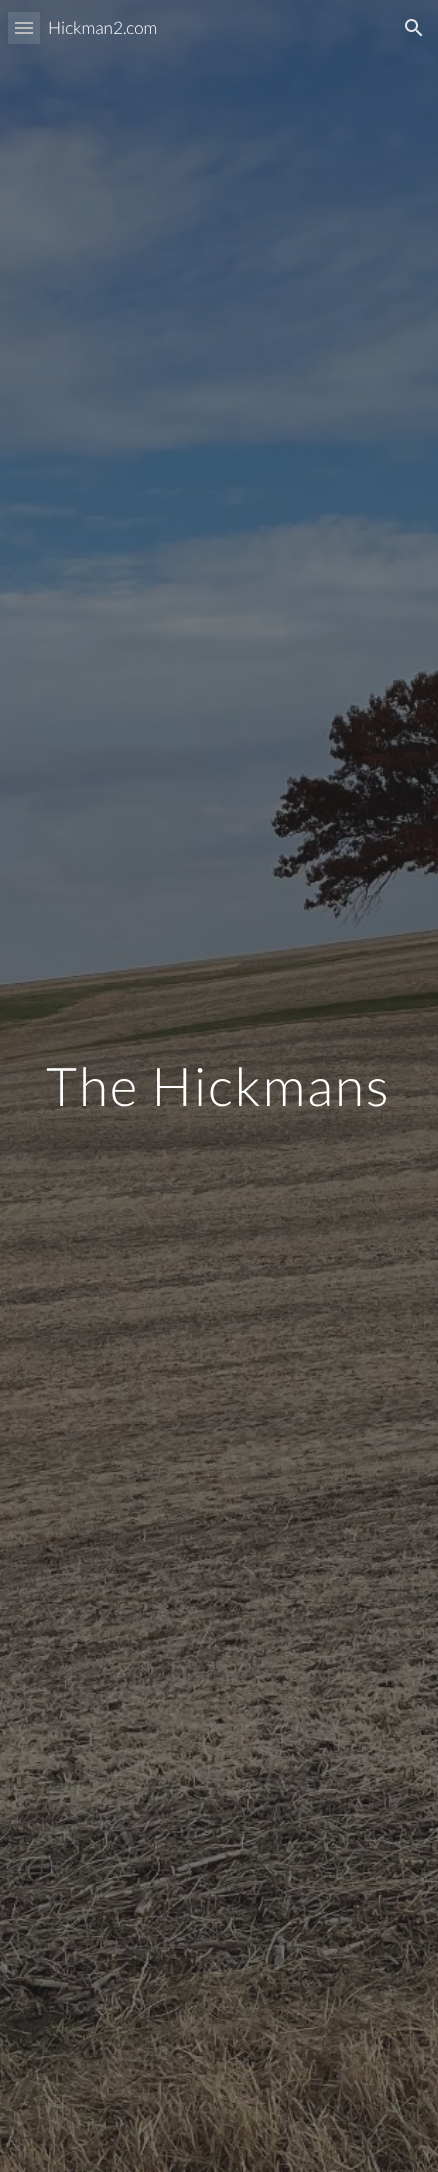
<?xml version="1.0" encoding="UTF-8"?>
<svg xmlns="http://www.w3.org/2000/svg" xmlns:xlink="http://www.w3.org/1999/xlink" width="438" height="2172">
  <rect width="100%" height="100%" fill="#ffffff" />
  <image x="0" y="0" width="438" height="2172" xlink:href="image2.png" />
  <rect x="15" y="22" width="18" height="2" fill="#b2b2b2" />
  <rect x="15" y="27" width="18" height="2" fill="#b2b2b2" />
  <rect x="15" y="32" width="18" height="2" fill="#b2b2b2" />
  <rect x="8" y="12" width="32" height="32" fill="#ffffff" fill-opacity="0.12" />
  <image x="405" y="19" width="18" height="18" xlink:href="image1.png" />
  <text x="48" y="34" style="font-family: Lato; font-size: 17.25px; font-weight: 300; fill: #ffffff">Hickman2.com</text>
  <text x="46" y="1106" style="font-family: Lato; font-size: 53.25px; font-weight: 300; letter-spacing: 2px; fill: #ffffff">The Hickmans</text>
</svg>
